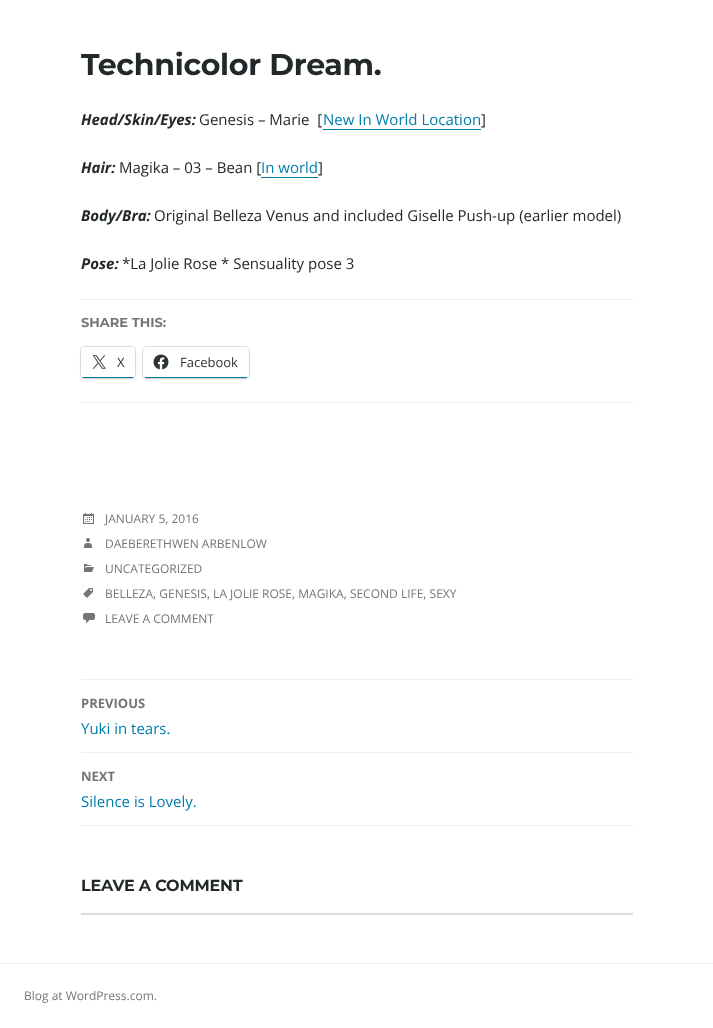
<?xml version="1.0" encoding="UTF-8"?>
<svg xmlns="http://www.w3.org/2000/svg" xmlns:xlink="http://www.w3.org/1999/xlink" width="713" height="1028">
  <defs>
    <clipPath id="clip1"><rect x="81" y="47" width="552" height="60" /></clipPath>
  </defs>
  <rect width="100%" height="100%" fill="#ffffff" />
  <rect x="323" y="129" width="158" height="1" fill="#007cad" />
  <rect x="261" y="177" width="57" height="1" fill="#007cad" />
  <rect x="81" y="299" width="552" height="1" fill="#ededed" />
  <rect x="80.5" y="346.5" width="55" height="32" rx="4.5" fill="none" stroke="#e0e0e0" />
  <rect x="81" y="348" width="54" height="31" rx="4" fill="#000000" fill-opacity="0.12" filter="blur(1px)" />
  <rect x="81" y="347" width="54" height="31" rx="4" fill="#ffffff" />
  <rect x="83" y="377" width="50" height="1" fill="#007cad" />
  <image x="92" y="355" width="14" height="14" xlink:href="image1.png" />
  <rect x="142.5" y="346.5" width="107" height="32" rx="4.5" fill="none" stroke="#e0e0e0" />
  <rect x="143" y="348" width="106" height="31" rx="4" fill="#000000" fill-opacity="0.12" filter="blur(1px)" />
  <rect x="143" y="347" width="106" height="31" rx="4" fill="#ffffff" />
  <rect x="145" y="377" width="102" height="1" fill="#007cad" />
  <image x="153" y="354" width="16" height="16" xlink:href="image2.png" />
  <rect x="81" y="402" width="552" height="1" fill="#ededed" />
  <image x="83" y="513" width="11" height="11" xlink:href="image3.png" />
  <image x="84" y="538" width="8" height="10" xlink:href="image4.png" />
  <image x="84" y="564" width="10" height="8" xlink:href="image5.png" />
  <image x="83" y="588" width="10" height="10" xlink:href="image6.png" />
  <image x="83" y="613" width="12" height="11" xlink:href="image7.png" />
  <rect x="81" y="679" width="552" height="1" fill="#ededed" />
  <rect x="81" y="752" width="552" height="1" fill="#ededed" />
  <rect x="81" y="825" width="552" height="1" fill="#ededed" />
  <rect x="81" y="913" width="552" height="2" fill="#dcdcde" />
  <rect y="963" width="713" height="1" fill="#ededed" />
  <g clip-path="url(#clip1)">
    <text x="81" y="75" style="font-family: Montserrat; font-size: 30px; font-weight: bold; letter-spacing: -0.25px; fill: #23292b">Technicolor Dream.</text>
  </g>
  <text x="81" y="125" style="font-family: Open Sans; font-size: 15px; font-weight: bold; font-style: italic; fill: #23292b">Head/Skin/Eyes:</text>
  <text x="199" y="125" style="font-family: Open Sans; font-size: 15px; fill: #23292b" xml:space="preserve">Genesis – Marie  [</text>
  <text x="323" y="125" style="font-family: Open Sans; font-size: 15px; fill: #007cad">New In World Location</text>
  <text x="481" y="125" style="font-family: Open Sans; font-size: 15px; fill: #23292b">]</text>
  <text x="81" y="173" style="font-family: Open Sans; font-size: 15px; font-weight: bold; font-style: italic; fill: #23292b">Hair:</text>
  <text x="119" y="173" style="font-family: Open Sans; font-size: 15px; fill: #23292b">Magika – 03 – Bean [</text>
  <text x="261" y="173" style="font-family: Open Sans; font-size: 15px; fill: #007cad">In world</text>
  <text x="318" y="173" style="font-family: Open Sans; font-size: 15px; fill: #23292b">]</text>
  <text x="81" y="221" style="font-family: Open Sans; font-size: 15px; font-weight: bold; font-style: italic; fill: #23292b">Body/Bra:</text>
  <text x="154" y="221" style="font-family: Open Sans; font-size: 15px; fill: #23292b">Original Belleza Venus and included Giselle Push-up (earlier model)</text>
  <text x="81" y="269" style="font-family: Open Sans; font-size: 15px; font-weight: bold; font-style: italic; fill: #23292b">Pose:</text>
  <text x="122" y="269" style="font-family: Open Sans; font-size: 15px; fill: #23292b">*La Jolie Rose * Sensuality pose 3</text>
  <text x="81" y="327" style="font-family: Montserrat; font-size: 13px; font-weight: bold; fill: #737678">SHARE THIS:</text>
  <text x="117" y="367" style="font-family: Open Sans; font-size: 13px; fill: #2c3338">X</text>
  <text x="180" y="367" style="font-family: Open Sans; font-size: 13px; fill: #2c3338">Facebook</text>
  <text x="105" y="523" style="font-family: Open Sans; font-size: 12px; fill: #737678">JANUARY 5, 2016</text>
  <text x="105" y="548" style="font-family: Open Sans; font-size: 12px; fill: #737678">DAEBERETHWEN ARBENLOW</text>
  <text x="105" y="573" style="font-family: Open Sans; font-size: 12px; fill: #737678">UNCATEGORIZED</text>
  <text x="105" y="598" style="font-family: Open Sans; font-size: 12px; fill: #737678">BELLEZA, GENESIS, LA JOLIE ROSE, MAGIKA, SECOND LIFE, SEXY</text>
  <text x="105" y="623" style="font-family: Open Sans; font-size: 12px; fill: #737678">LEAVE A COMMENT</text>
  <text x="81" y="708" style="font-family: Open Sans; font-size: 13px; font-weight: bold; fill: #737678">PREVIOUS</text>
  <text x="81" y="734" style="font-family: Open Sans; font-size: 15px; fill: #007cad">Yuki in tears.</text>
  <text x="81" y="781" style="font-family: Open Sans; font-size: 13px; font-weight: bold; fill: #737678">NEXT</text>
  <text x="81" y="807" style="font-family: Open Sans; font-size: 15px; fill: #007cad">Silence is Lovely.</text>
  <text x="81" y="891" style="font-family: Montserrat; font-size: 16px; font-weight: bold; letter-spacing: -0.2px; fill: #23292b">LEAVE A COMMENT</text>
  <text x="24" y="1000" style="font-family: Open Sans; font-size: 12px; fill: #737678">Blog at WordPress.com.</text>
</svg>
